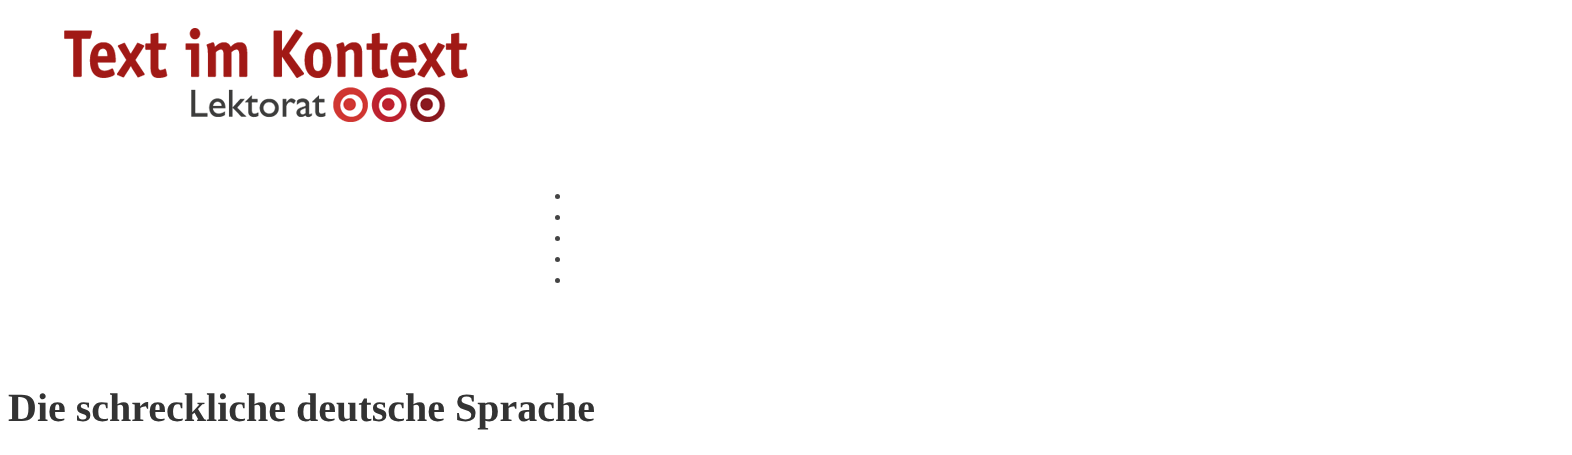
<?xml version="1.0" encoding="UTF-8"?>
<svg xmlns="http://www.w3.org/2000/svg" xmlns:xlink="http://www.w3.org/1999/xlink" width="1572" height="455">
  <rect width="100%" height="100%" fill="#ffffff" />
  <image x="64" y="28" width="404" height="94" xlink:href="image1.png" />
  <circle cx="557.5" cy="196.5" r="2.5" fill="#444444" />
  <circle cx="557.5" cy="217.5" r="2.5" fill="#444444" />
  <circle cx="557.5" cy="238.5" r="2.5" fill="#444444" />
  <circle cx="557.5" cy="259.5" r="2.5" fill="#444444" />
  <circle cx="557.5" cy="280.5" r="2.5" fill="#444444" />
  <text x="8" y="421" style="font-family: Liberation Serif; font-size: 40px; font-weight: bold; fill: #333333">Die schreckliche deutsche Sprache</text>
</svg>
